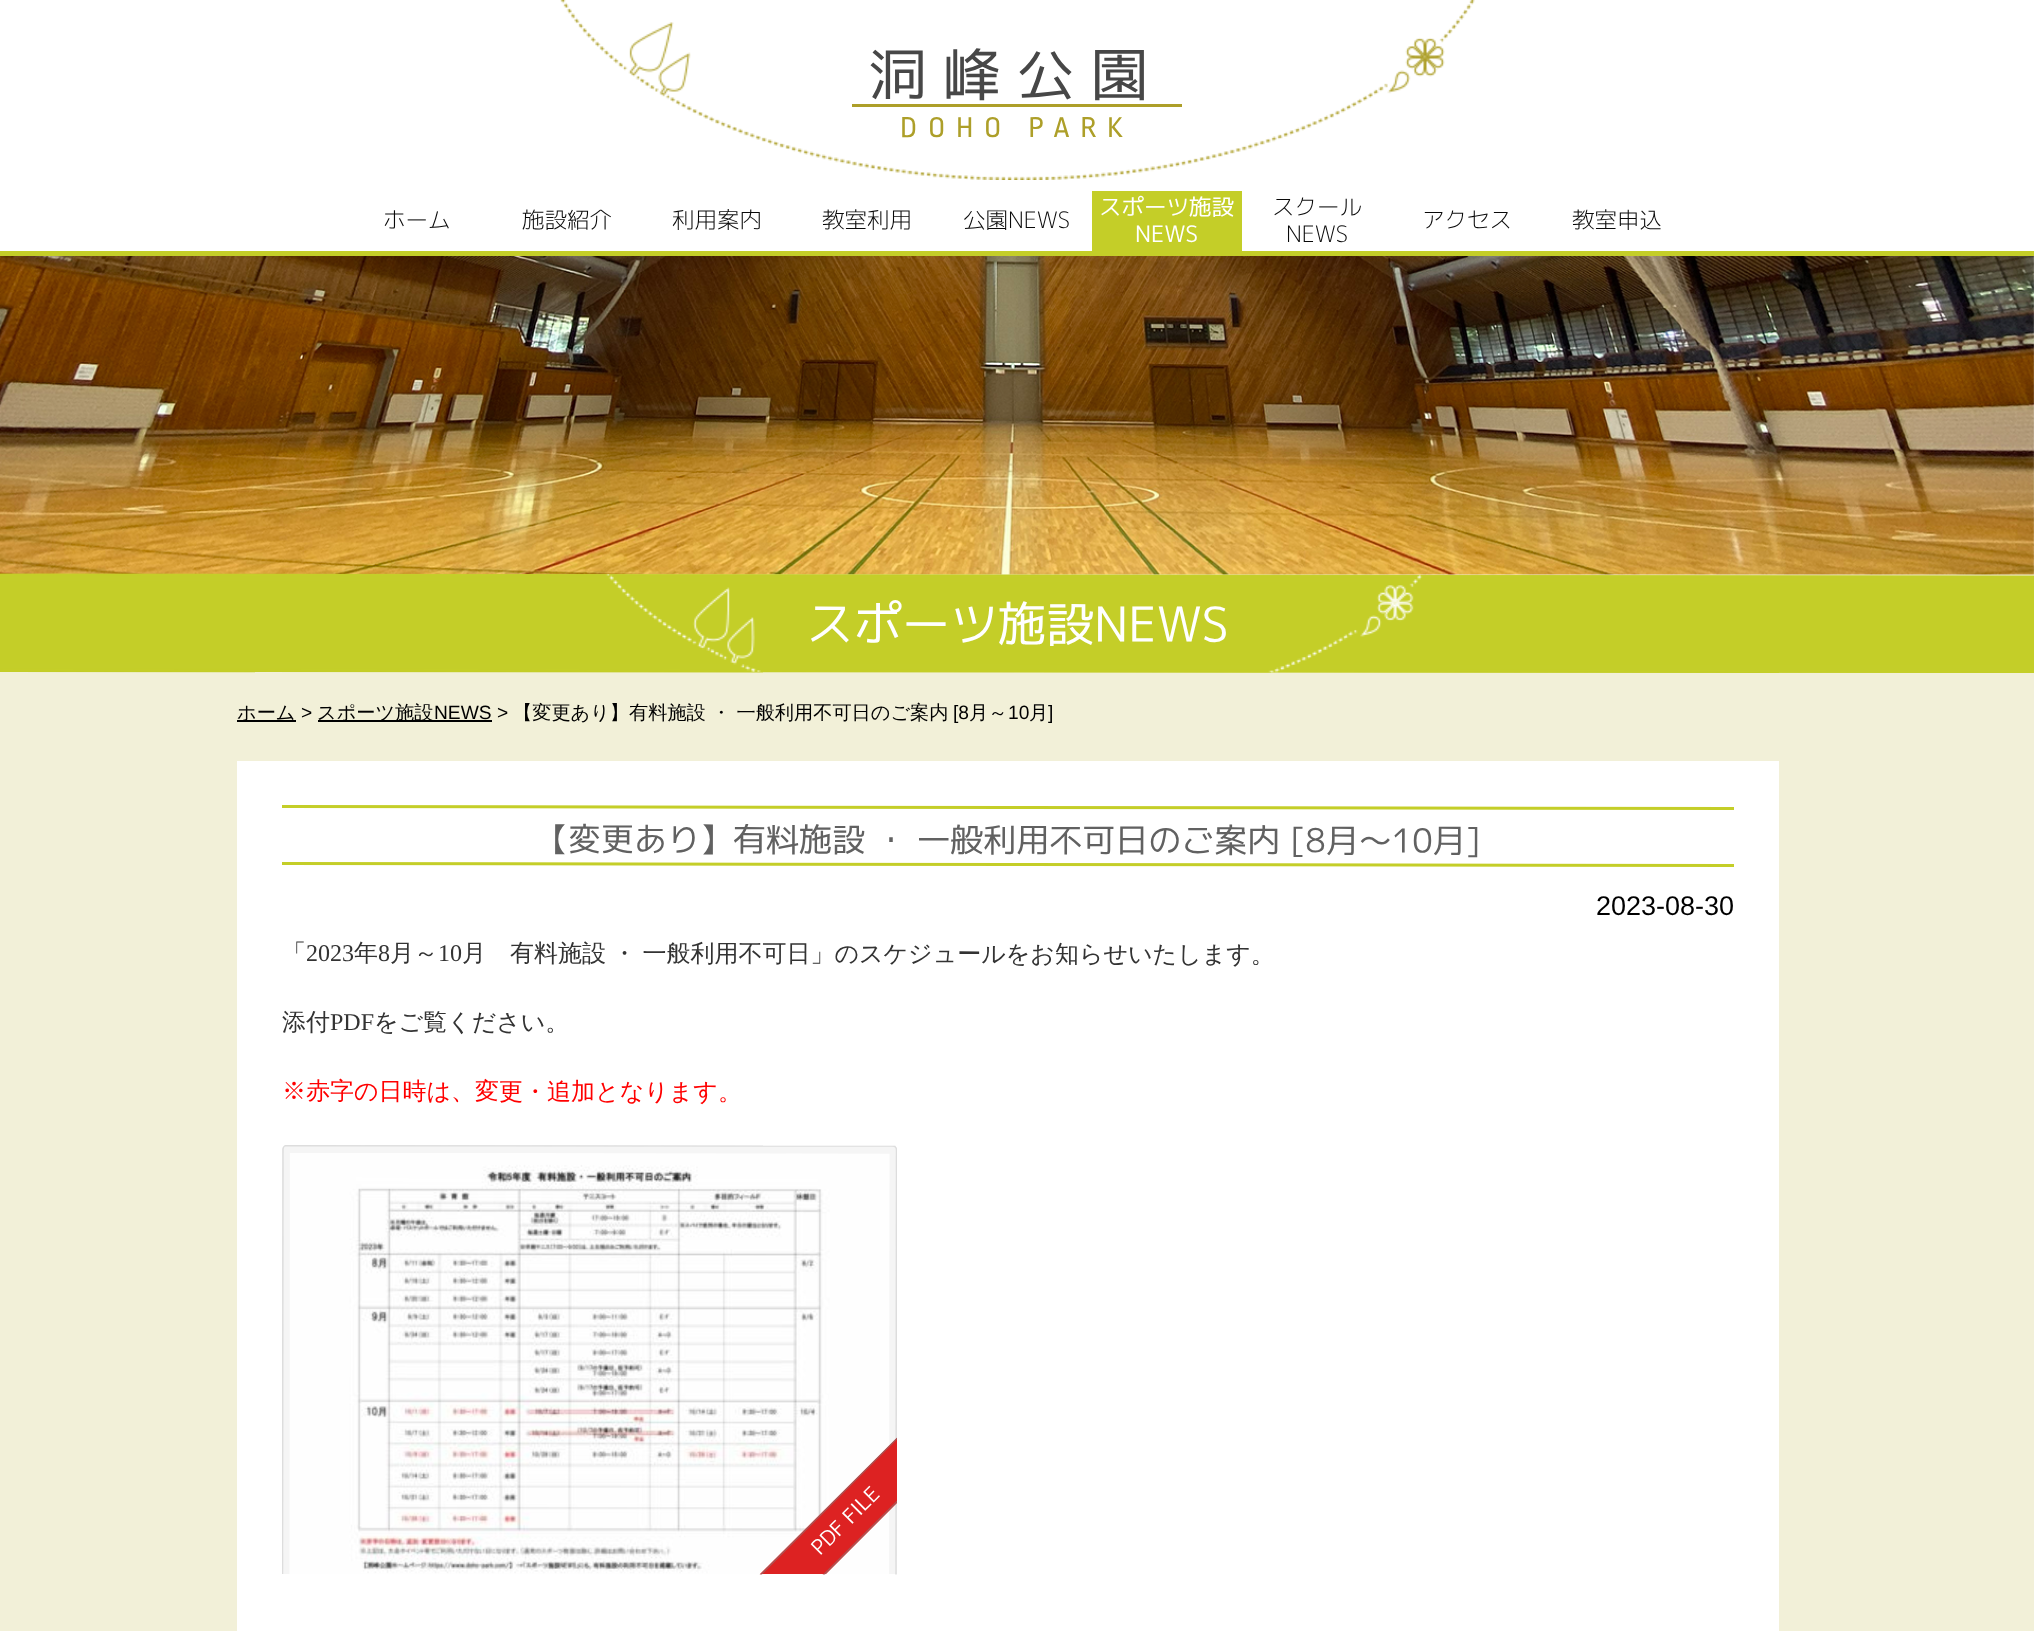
<?xml version="1.0" encoding="UTF-8"?>
<svg xmlns="http://www.w3.org/2000/svg" xmlns:xlink="http://www.w3.org/1999/xlink" width="2034" height="1631">
  <defs>
    <clipPath id="clip1"><path d="M 282 1145 l 615 0.5 v 429 l -615 -0.5 z" /></clipPath>
  </defs>
  <rect width="100%" height="100%" fill="#f2f0d8" />
  <rect width="2034" height="251" fill="#ffffff" />
  <image x="560" y="0" width="915" height="180" xlink:href="image1.png" />
  <rect y="251" width="2034" height="5" fill="#c4ce28" />
  <rect x="852" y="104" width="330" height="3" fill="#ad9f29" />
  <rect x="1092" y="191" width="150" height="60" fill="#c4ce28" />
  <image x="0" y="256" width="2034" height="319" xlink:href="image2.png" />
  <path d="M 0 574 l 2034 2 v 97 l -2034 -1 z" fill="#c3cd28" />
  <image x="0" y="573" width="2034" height="100" xlink:href="image3.png" />
  <rect x="237" y="720" width="59" height="2" fill="#000000" />
  <rect x="318" y="720" width="174" height="2" fill="#000000" />
  <rect x="237" y="761" width="1542" height="870" fill="#ffffff" />
  <path d="M 282 805 l 1452 2 v 3 l -1452 -2 z" fill="#c4ce28" />
  <path d="M 282 862 l 1452 2 v 3 l -1452 -2 z" fill="#c4ce28" />
  <path d="M 287 1145 h 608 c 1 1 2 3 2 5 v 424 h -615 v -426 l 3 -2 z" fill="#f5f5f5" />
  <g clip-path="url(#clip1)">
    <path d="M 286.5 1145.5 l 606 0.5 c 2.5 0 4 2 4 4 l -0.5 430.5 c 0 2 -1.5 3.5 -3.5 3.5 l -606 -0.5 c -2.5 0 -4 -1.5 -4 -3.5 l 0.5 -430.5 c 0 -2 1.5 -4 3.5 -4 z" fill="none" stroke="#dddddd" stroke-width="1.5" />
  </g>
  <image x="289" y="1153" width="601" height="421" xlink:href="image4.png" />
  <path d="M 826 1574 h -66 l 137 -136 v 65 z" fill="#dd2222" />
  <g clip-path="url(#clip1)">
    <path d="M 760.5 1575 l 139 -139 l 31.5 31.5 l -139 139 z" fill="none" stroke="#aa5555" stroke-width="1.5" />
  </g>
  <text x="869" y="95" style="font-family: 'M PLUS 1p'; font-size: 57px; letter-spacing: 17px; fill: #474747">洞峰公園</text>
  <text x="900" y="137" style="font-family: Ropa Sans; font-size: 30px; letter-spacing: 10.75px; fill: #ad9f29">DOHO PARK</text>
  <text x="383" y="228" style="font-family: 'M PLUS 1p'; font-size: 22.5px; font-weight: 300; fill: #090909">ホーム</text>
  <text x="522" y="228" style="font-family: 'M PLUS 1p'; font-size: 22.5px; font-weight: 300; fill: #090909">施設紹介</text>
  <text x="672" y="228" style="font-family: 'M PLUS 1p'; font-size: 22.5px; font-weight: 300; fill: #090909">利用案内</text>
  <text x="822" y="228" style="font-family: 'M PLUS 1p'; font-size: 22.5px; font-weight: 300; fill: #090909">教室利用</text>
  <text x="963" y="228" style="font-family: 'M PLUS 1p'; font-size: 22.5px; font-weight: 300; fill: #090909">公園NEWS</text>
  <text x="1099" y="215" style="font-family: 'M PLUS 1p'; font-size: 22.5px; fill: #ffffff">スポーツ施設</text>
  <text x="1135" y="242" style="font-family: 'M PLUS 1p'; font-size: 22.5px; fill: #ffffff">NEWS</text>
  <text x="1272" y="215" style="font-family: 'M PLUS 1p'; font-size: 22.5px; font-weight: 300; fill: #090909">スクール</text>
  <text x="1286" y="242" style="font-family: 'M PLUS 1p'; font-size: 22.5px; font-weight: 300; fill: #090909">NEWS</text>
  <text x="1422" y="228" style="font-family: 'M PLUS 1p'; font-size: 22.5px; font-weight: 300; fill: #090909">アクセス</text>
  <text x="1572" y="228" style="font-family: 'M PLUS 1p'; font-size: 22.5px; font-weight: 300; fill: #090909">教室申込</text>
  <text x="806" y="641" transform="rotate(0.1 806 641)" style="font-family: 'M PLUS 1p'; font-size: 48px; fill: #ffffff">スポーツ施設NEWS</text>
  <text x="237" y="719" style="font-family: WenQuanYi Zen Hei; font-size: 19.2px; font-weight: 500; fill: #000000">ホーム</text>
  <text x="301" y="719" style="font-family: Liberation Sans; font-size: 19.2px; fill: #000000">&gt;</text>
  <text x="317" y="719" style="font-family: WenQuanYi Zen Hei; font-size: 19.2px; font-weight: 500; fill: #000000">スポーツ施設</text>
  <text x="434" y="719" style="font-family: Liberation Sans; font-size: 19.2px; fill: #000000">NEWS</text>
  <text x="497" y="719" style="font-family: Liberation Sans; font-size: 19.2px; fill: #000000">&gt;</text>
  <text x="513" y="719" style="font-family: WenQuanYi Zen Hei; font-size: 19.2px; font-weight: 500; fill: #000000">【変更あり】有料施設 ・ 一般利用不可日のご案内</text>
  <text x="953" y="719" style="font-family: Liberation Sans; font-size: 19.2px; fill: #000000">[8</text>
  <text x="969" y="719" style="font-family: WenQuanYi Zen Hei; font-size: 19.2px; font-weight: 500; fill: #000000">月～</text>
  <text x="1008" y="719" style="font-family: Liberation Sans; font-size: 19.2px; fill: #000000">10</text>
  <text x="1029" y="719" style="font-family: WenQuanYi Zen Hei; font-size: 19.2px; font-weight: 500; fill: #000000">月</text>
  <text x="1048" y="719" style="font-family: Liberation Sans; font-size: 19.2px; fill: #000000">]</text>
  <text x="535" y="851" transform="rotate(0.1 535 851)" style="font-family: 'M PLUS 1p'; font-size: 33px; fill: #616161">【変更あり】有料施設 ・ 一般利用不可日のご案内 [8月～10月]</text>
  <text x="1596" y="915" style="font-family: Liberation Sans; font-size: 27px; fill: #000000">2023-08-30</text>
  <text x="282" y="961" transform="rotate(0.1 282 961)" style="font-family: WenQuanYi Zen Hei; font-size: 24px; font-weight: 500; fill: #333333">「</text>
  <text x="306" y="961" transform="rotate(0.1 306 961)" style="font-family: Liberation Serif; font-size: 24px; fill: #333333">2023</text>
  <text x="354" y="961" transform="rotate(0.1 354 961)" style="font-family: WenQuanYi Zen Hei; font-size: 24px; font-weight: 500; fill: #333333">年</text>
  <text x="378" y="961" transform="rotate(0.1 378 961)" style="font-family: Liberation Serif; font-size: 24px; fill: #333333">8</text>
  <text x="390" y="961" transform="rotate(0.1 390 961)" style="font-family: WenQuanYi Zen Hei; font-size: 24px; font-weight: 500; fill: #333333">月～</text>
  <text x="438" y="961" transform="rotate(0.1 438 961)" style="font-family: Liberation Serif; font-size: 24px; fill: #333333">10</text>
  <text x="462" y="961" transform="rotate(0.1 462 961)" word-spacing="-1" style="font-family: WenQuanYi Zen Hei; font-size: 24px; font-weight: 500; fill: #333333">月　有料施設 ・ 一般利用不可日」のスケジュールをお知らせいたします。</text>
  <text x="282" y="1030" transform="rotate(0.1 282 1030)" style="font-family: WenQuanYi Zen Hei; font-size: 24px; font-weight: 500; fill: #333333">添付</text>
  <text x="330" y="1030" transform="rotate(0.1 330 1030)" style="font-family: Liberation Serif; font-size: 24px; fill: #333333">PDF</text>
  <text x="374" y="1030" transform="rotate(0.1 374 1030)" style="font-family: WenQuanYi Zen Hei; font-size: 24px; font-weight: 500; fill: #333333">をご覧ください。</text>
  <text x="282" y="1099" transform="rotate(0.1 282 1099)" style="font-family: WenQuanYi Zen Hei; font-size: 24px; font-weight: 500; fill: #ff0000">※赤字の日時は、変更・追加となります。</text>
  <text x="820" y="1556" transform="rotate(-44.9 820 1556)" style="font-family: 'M PLUS 1p'; font-size: 20.5px; fill: #ffffff">PDF FILE</text>
</svg>
